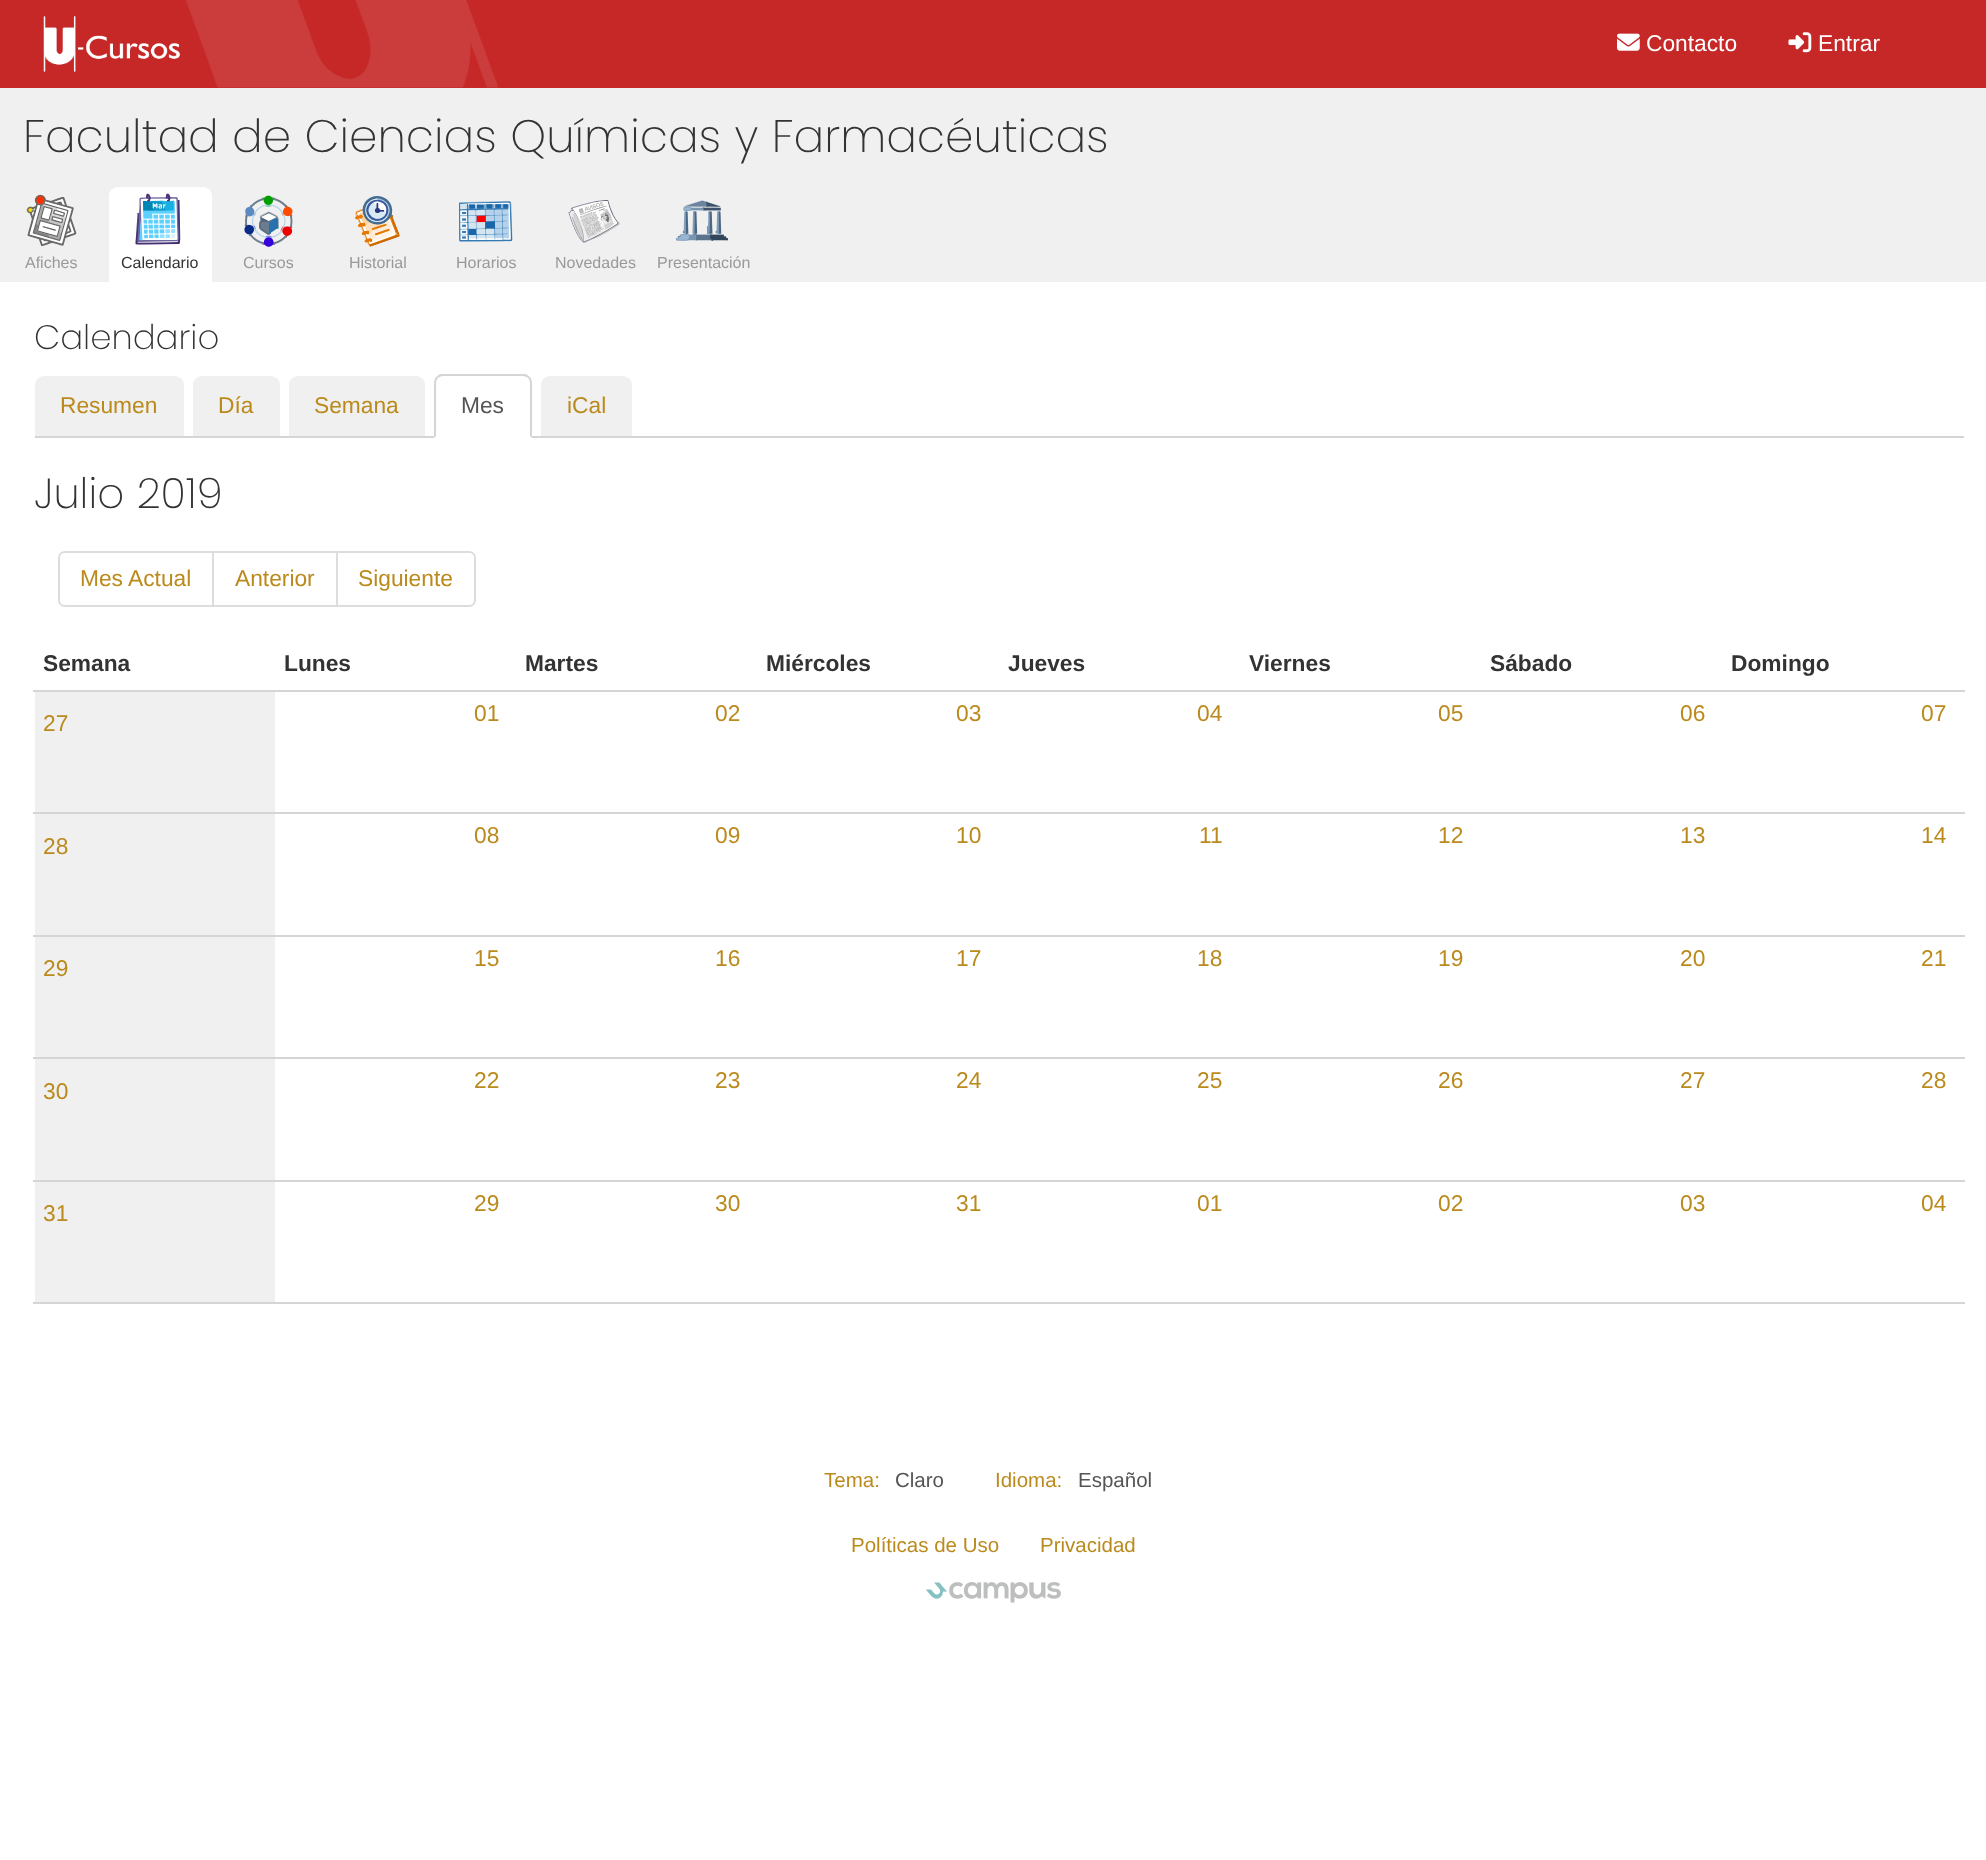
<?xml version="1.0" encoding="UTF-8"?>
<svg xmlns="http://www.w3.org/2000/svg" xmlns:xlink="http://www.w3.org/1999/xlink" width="1986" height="1860">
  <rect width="100%" height="100%" fill="#ffffff" />
  <rect width="1986" height="88" fill="#c62828" />
  <image x="43" y="15" width="138" height="57" xlink:href="image1.png" />
  <image x="186" y="0" width="312" height="88" xlink:href="image2.png" />
  <image x="1617" y="33" width="23" height="18" xlink:href="image3.png" />
  <image x="1788" y="32" width="24" height="21" xlink:href="image4.png" />
  <rect y="88" width="1986" height="194" fill="#f0f0f0" />
  <image x="26" y="194" width="51" height="53" xlink:href="image5.png" />
  <path d="M 118 187 h 85 c 5 0 9 4 9 9 v 86 h -103 v -86 c 0 -5 4 -9 9 -9 z" fill="#ffffff" />
  <image x="135" y="193" width="46" height="52" xlink:href="image6.png" />
  <image x="244" y="195" width="49" height="52" xlink:href="image7.png" />
  <image x="355" y="196" width="45" height="51" xlink:href="image8.png" />
  <image x="459" y="201" width="54" height="41" xlink:href="image9.png" />
  <image x="568" y="200" width="52" height="43" xlink:href="image10.png" />
  <image x="676" y="200" width="52" height="42" xlink:href="image11.png" />
  <rect x="35" y="436" width="1929" height="2" fill="#d5d5d5" />
  <path d="M 44 376 h 131 c 5 0 9 4 9 9 v 51 h -149 v -51 c 0 -5 4 -9 9 -9 z" fill="#f0f0f0" />
  <path d="M 202 376 h 69 c 5 0 9 4 9 9 v 51 h -87 v -51 c 0 -5 4 -9 9 -9 z" fill="#f0f0f0" />
  <path d="M 298 376 h 118 c 5 0 9 4 9 9 v 51 h -136 v -51 c 0 -5 4 -9 9 -9 z" fill="#f0f0f0" />
  <path d="M 443 375 h 80 c 5 0 9 4 9 9 v 54 h -98 v -54 c 0 -5 4 -9 9 -9 z" fill="#ffffff" />
  <path d="M 443 376 c -2 0 -4 1 -5 2 l -2 -1 l 4 -3 h 86 l 4 3 l -2 1 c -1 -1 -3 -2 -5 -2 z" fill="#d5d5d5" />
  <path d="M 532 438 v -55 c 0 -2 -1 -5 -2 -6 l -2 1 c 1 1 2 3 2 5 v 53 z" fill="#d5d5d5" />
  <path d="M 532 438 h -98 l 2 -2 h 94 z" fill="#ffffff" />
  <path d="M 434 438 l 2 -2 v -53 c 0 -2 1 -4 2 -5 l -2 -1 c -1 1 -2 4 -2 6 z" fill="#d5d5d5" />
  <path d="M 550 376 h 73 c 5 0 9 4 9 9 v 51 h -91 v -51 c 0 -5 4 -9 9 -9 z" fill="#f0f0f0" />
  <path d="M 65 552 h 148 v 54 h -148 c -3.5 0 -6 -2.5 -6 -6 v -42 c 0 -3.5 2.5 -6 6 -6 z" fill="none" stroke="#dddddd" stroke-width="2" />
  <rect x="213" y="552" width="124" height="54" fill="none" stroke="#dddddd" stroke-width="2" />
  <path d="M 337 552 h 132 c 3.5 0 6 2.5 6 6 v 42 c 0 3.5 -2.5 6 -6 6 h -132 z" fill="#ffffff" stroke="#dddddd" stroke-width="2" />
  <rect x="33" y="690" width="1932" height="2" fill="#d5d5d5" />
  <rect x="33" y="812" width="1932" height="2" fill="#d5d5d5" />
  <rect x="35" y="692" width="240" height="120" fill="#f0f0f0" />
  <rect x="33" y="935" width="1932" height="2" fill="#d5d5d5" />
  <rect x="35" y="814" width="240" height="121" fill="#f0f0f0" />
  <rect x="33" y="1057" width="1932" height="2" fill="#d5d5d5" />
  <rect x="35" y="937" width="240" height="120" fill="#f0f0f0" />
  <rect x="33" y="1180" width="1932" height="2" fill="#d5d5d5" />
  <rect x="35" y="1059" width="240" height="121" fill="#f0f0f0" />
  <rect x="33" y="1302" width="1932" height="2" fill="#d5d5d5" />
  <rect x="35" y="1182" width="240" height="120" fill="#f0f0f0" />
  <image x="926" y="1582" width="135" height="21" xlink:href="image12.png" />
  <text x="1646" y="51" style="font-family: Liberation Sans; font-size: 22.75px; fill: #ffffff">Contacto</text>
  <text x="1818" y="51" style="font-family: Liberation Sans; font-size: 22.75px; fill: #ffffff">Entrar</text>
  <text x="23" y="152" style="font-family: Poppins; font-size: 45.5px; font-weight: 200; fill: #333333">Facultad de Ciencias Químicas y Farmacéuticas</text>
  <text x="25" y="268" style="font-family: Liberation Sans; font-size: 16px; fill: #999999">Afiches</text>
  <text x="121" y="268" style="font-family: Liberation Sans; font-size: 16px; fill: #333333">Calendario</text>
  <text x="243" y="268" style="font-family: Liberation Sans; font-size: 16px; fill: #999999">Cursos</text>
  <text x="349" y="268" style="font-family: Liberation Sans; font-size: 16px; fill: #999999">Historial</text>
  <text x="456" y="268" style="font-family: Liberation Sans; font-size: 16px; fill: #999999">Horarios</text>
  <text x="555" y="268" style="font-family: Liberation Sans; font-size: 16px; fill: #999999">Novedades</text>
  <text x="657" y="268" style="font-family: Liberation Sans; font-size: 16px; fill: #999999">Presentación</text>
  <text x="34" y="349" style="font-family: Poppins; font-size: 34px; font-weight: 200; fill: #333333">Calendario</text>
  <text x="60" y="413" style="font-family: Liberation Sans; font-size: 22.75px; fill: #bb8a1d">Resumen</text>
  <text x="218" y="413" style="font-family: Liberation Sans; font-size: 22.75px; fill: #bb8a1d">Día</text>
  <text x="314" y="413" style="font-family: Liberation Sans; font-size: 22.75px; fill: #bb8a1d">Semana</text>
  <text x="461" y="413" style="font-family: Liberation Sans; font-size: 22.75px; fill: #555555">Mes</text>
  <text x="567" y="413" style="font-family: Liberation Sans; font-size: 22.75px; fill: #bb8a1d">iCal</text>
  <text x="34" y="508" style="font-family: Poppins; font-size: 42px; font-weight: 200; fill: #333333">Julio 2019</text>
  <text x="80" y="586" style="font-family: Liberation Sans; font-size: 22.75px; fill: #bb8a1d">Mes Actual</text>
  <text x="235" y="586" style="font-family: Liberation Sans; font-size: 22.75px; fill: #bb8a1d">Anterior</text>
  <text x="358" y="586" style="font-family: Liberation Sans; font-size: 22.75px; fill: #bb8a1d">Siguiente</text>
  <text x="43" y="671" style="font-family: Liberation Sans; font-size: 22.75px; font-weight: bold; fill: #333333">Semana</text>
  <text x="284" y="671" style="font-family: Liberation Sans; font-size: 22.75px; font-weight: bold; fill: #333333">Lunes</text>
  <text x="525" y="671" style="font-family: Liberation Sans; font-size: 22.75px; font-weight: bold; fill: #333333">Martes</text>
  <text x="766" y="671" style="font-family: Liberation Sans; font-size: 22.75px; font-weight: bold; fill: #333333">Miércoles</text>
  <text x="1008" y="671" style="font-family: Liberation Sans; font-size: 22.75px; font-weight: bold; fill: #333333">Jueves</text>
  <text x="1249" y="671" style="font-family: Liberation Sans; font-size: 22.75px; font-weight: bold; fill: #333333">Viernes</text>
  <text x="1490" y="671" style="font-family: Liberation Sans; font-size: 22.75px; font-weight: bold; fill: #333333">Sábado</text>
  <text x="1731" y="671" style="font-family: Liberation Sans; font-size: 22.75px; font-weight: bold; fill: #333333">Domingo</text>
  <text x="43" y="731" style="font-family: Liberation Sans; font-size: 22.75px; fill: #bb8a1d">27</text>
  <text x="474" y="721" style="font-family: Liberation Sans; font-size: 22.75px; fill: #bb8a1d">01</text>
  <text x="715" y="721" style="font-family: Liberation Sans; font-size: 22.75px; fill: #bb8a1d">02</text>
  <text x="956" y="721" style="font-family: Liberation Sans; font-size: 22.75px; fill: #bb8a1d">03</text>
  <text x="1197" y="721" style="font-family: Liberation Sans; font-size: 22.75px; fill: #bb8a1d">04</text>
  <text x="1438" y="721" style="font-family: Liberation Sans; font-size: 22.75px; fill: #bb8a1d">05</text>
  <text x="1680" y="721" style="font-family: Liberation Sans; font-size: 22.75px; fill: #bb8a1d">06</text>
  <text x="1921" y="721" style="font-family: Liberation Sans; font-size: 22.75px; fill: #bb8a1d">07</text>
  <text x="474" y="843" style="font-family: Liberation Sans; font-size: 22.75px; fill: #bb8a1d">08</text>
  <text x="715" y="843" style="font-family: Liberation Sans; font-size: 22.75px; fill: #bb8a1d">09</text>
  <text x="956" y="843" style="font-family: Liberation Sans; font-size: 22.75px; fill: #bb8a1d">10</text>
  <text x="1199" y="843" style="font-family: Liberation Sans; font-size: 22.75px; fill: #bb8a1d">11</text>
  <text x="1438" y="843" style="font-family: Liberation Sans; font-size: 22.75px; fill: #bb8a1d">12</text>
  <text x="1680" y="843" style="font-family: Liberation Sans; font-size: 22.75px; fill: #bb8a1d">13</text>
  <text x="1921" y="843" style="font-family: Liberation Sans; font-size: 22.75px; fill: #bb8a1d">14</text>
  <text x="43" y="854" style="font-family: Liberation Sans; font-size: 22.75px; fill: #bb8a1d">28</text>
  <text x="474" y="966" style="font-family: Liberation Sans; font-size: 22.75px; fill: #bb8a1d">15</text>
  <text x="715" y="966" style="font-family: Liberation Sans; font-size: 22.75px; fill: #bb8a1d">16</text>
  <text x="956" y="966" style="font-family: Liberation Sans; font-size: 22.75px; fill: #bb8a1d">17</text>
  <text x="1197" y="966" style="font-family: Liberation Sans; font-size: 22.75px; fill: #bb8a1d">18</text>
  <text x="1438" y="966" style="font-family: Liberation Sans; font-size: 22.75px; fill: #bb8a1d">19</text>
  <text x="1680" y="966" style="font-family: Liberation Sans; font-size: 22.75px; fill: #bb8a1d">20</text>
  <text x="1921" y="966" style="font-family: Liberation Sans; font-size: 22.75px; fill: #bb8a1d">21</text>
  <text x="43" y="976" style="font-family: Liberation Sans; font-size: 22.75px; fill: #bb8a1d">29</text>
  <text x="474" y="1088" style="font-family: Liberation Sans; font-size: 22.75px; fill: #bb8a1d">22</text>
  <text x="715" y="1088" style="font-family: Liberation Sans; font-size: 22.75px; fill: #bb8a1d">23</text>
  <text x="956" y="1088" style="font-family: Liberation Sans; font-size: 22.75px; fill: #bb8a1d">24</text>
  <text x="1197" y="1088" style="font-family: Liberation Sans; font-size: 22.75px; fill: #bb8a1d">25</text>
  <text x="1438" y="1088" style="font-family: Liberation Sans; font-size: 22.75px; fill: #bb8a1d">26</text>
  <text x="1680" y="1088" style="font-family: Liberation Sans; font-size: 22.75px; fill: #bb8a1d">27</text>
  <text x="1921" y="1088" style="font-family: Liberation Sans; font-size: 22.75px; fill: #bb8a1d">28</text>
  <text x="43" y="1099" style="font-family: Liberation Sans; font-size: 22.75px; fill: #bb8a1d">30</text>
  <text x="43" y="1221" style="font-family: Liberation Sans; font-size: 22.75px; fill: #bb8a1d">31</text>
  <text x="474" y="1211" style="font-family: Liberation Sans; font-size: 22.75px; fill: #bb8a1d">29</text>
  <text x="715" y="1211" style="font-family: Liberation Sans; font-size: 22.75px; fill: #bb8a1d">30</text>
  <text x="956" y="1211" style="font-family: Liberation Sans; font-size: 22.75px; fill: #bb8a1d">31</text>
  <text x="1197" y="1211" style="font-family: Liberation Sans; font-size: 22.75px; fill: #bb8a1d">01</text>
  <text x="1438" y="1211" style="font-family: Liberation Sans; font-size: 22.75px; fill: #bb8a1d">02</text>
  <text x="1680" y="1211" style="font-family: Liberation Sans; font-size: 22.75px; fill: #bb8a1d">03</text>
  <text x="1921" y="1211" style="font-family: Liberation Sans; font-size: 22.75px; fill: #bb8a1d">04</text>
  <text x="824" y="1487" style="font-family: Liberation Sans; font-size: 20.5px; fill: #bb8a1d">Tema:</text>
  <text x="895" y="1487" style="font-family: Liberation Sans; font-size: 20.5px; fill: #555555">Claro</text>
  <text x="995" y="1487" style="font-family: Liberation Sans; font-size: 20.5px; fill: #bb8a1d">Idioma:</text>
  <text x="1078" y="1487" style="font-family: Liberation Sans; font-size: 20.5px; fill: #555555">Español</text>
  <text x="851" y="1552" style="font-family: Liberation Sans; font-size: 20.5px; fill: #bb8a1d">Políticas de Uso</text>
  <text x="1040" y="1552" style="font-family: Liberation Sans; font-size: 20.5px; fill: #bb8a1d">Privacidad</text>
</svg>
